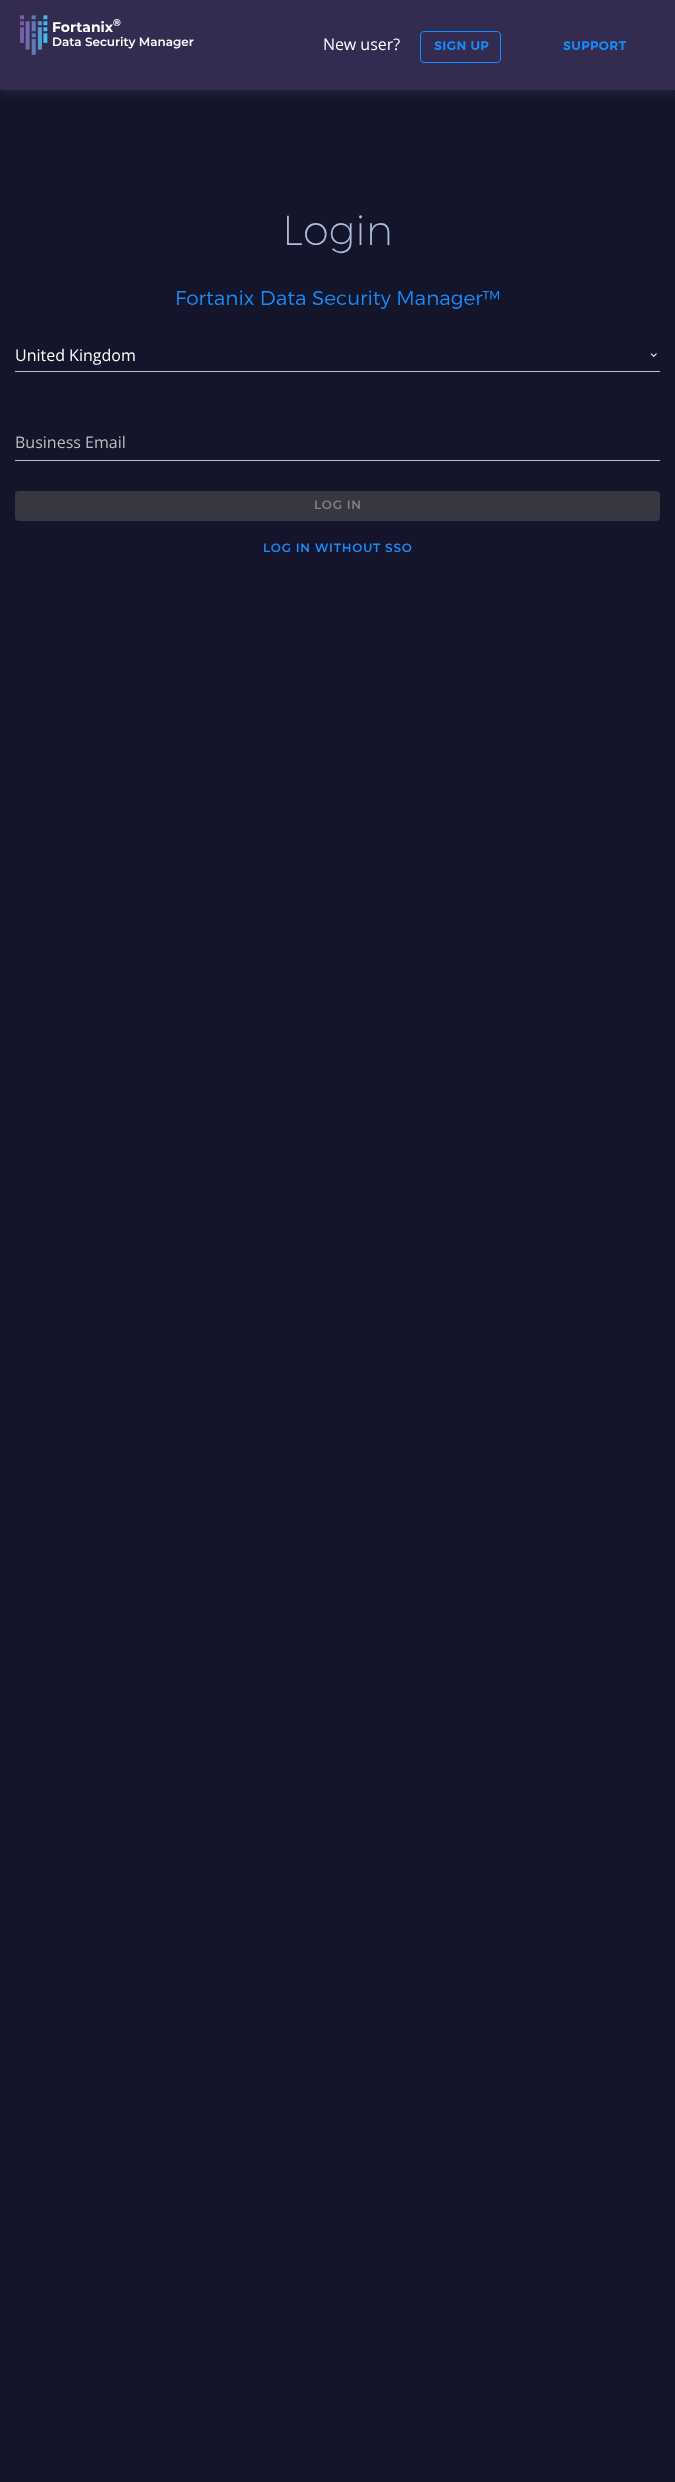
<?xml version="1.0" encoding="UTF-8"?>
<svg xmlns="http://www.w3.org/2000/svg" xmlns:xlink="http://www.w3.org/1999/xlink" width="675" height="2482">
  <defs>
    <clipPath id="clip1"><rect x="53" y="19" width="141" height="32" /></clipPath>
  </defs>
  <rect width="100%" height="100%" fill="#14142a" />
  <rect y="3" width="675" height="90" fill="#8486b5" fill-opacity="0.16" filter="blur(6px)" />
  <rect width="675" height="90" fill="#332b50" />
  <image x="20" y="15" width="28" height="40" xlink:href="image1.png" />
  <rect x="420.5" y="31.5" width="80" height="31" rx="3.5" fill="none" stroke="#178dfb" />
  <rect x="15" y="371" width="645" height="1" fill="#bdbec1" />
  <image x="650" y="353" width="7" height="4" xlink:href="image2.png" />
  <rect x="15" y="460" width="645" height="1" fill="#bdbec1" />
  <rect x="15" y="491" width="645" height="30" rx="4" fill="#363740" />
  <text x="52" y="32" style="font-family: 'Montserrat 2'; font-size: 14px; font-weight: 100; fill: #ffffff">Fortanix</text>
  <g clip-path="url(#clip1)">
    <text x="113" y="26" style="font-family: 'Montserrat 2'; font-size: 10px; font-weight: 100; fill: #ffffff">®</text>
  </g>
  <text x="52" y="46" style="font-family: Montserrat; font-size: 12px; font-weight: 100; fill: #ffffff">Data Security Manager</text>
  <text x="323" y="50" style="font-family: Open Sans; font-size: 16px; fill: #ffffff">New user?</text>
  <text x="434" y="50" style="font-family: Montserrat; font-size: 12px; font-weight: bold; letter-spacing: 0.75px; fill: #178dfb">SIGN UP</text>
  <text x="563" y="50" style="font-family: Montserrat; font-size: 12px; font-weight: bold; letter-spacing: 0.75px; fill: #178dfb">SUPPORT</text>
  <text x="282" y="245" style="font-family: Montserrat; font-size: 42px; font-weight: 200; fill: #abbfdd">Login</text>
  <text x="175" y="305" style="font-family: Montserrat; font-size: 20px; font-weight: 300; fill: #178dfb">Fortanix Data Security Manager™</text>
  <text x="15" y="361" style="font-family: Open Sans; font-size: 16px; fill: #ffffff">United Kingdom</text>
  <text x="15" y="448" style="font-family: Open Sans; font-size: 16px; fill: #bdbec1">Business Email</text>
  <text x="314" y="509" style="font-family: Montserrat; font-size: 12px; font-weight: 100; letter-spacing: 0.75px; fill: #808086">LOG IN</text>
  <text x="263" y="552" style="font-family: Montserrat; font-size: 12px; font-weight: 100; letter-spacing: 0.75px; fill: #178dfb">LOG IN WITHOUT SSO</text>
</svg>
